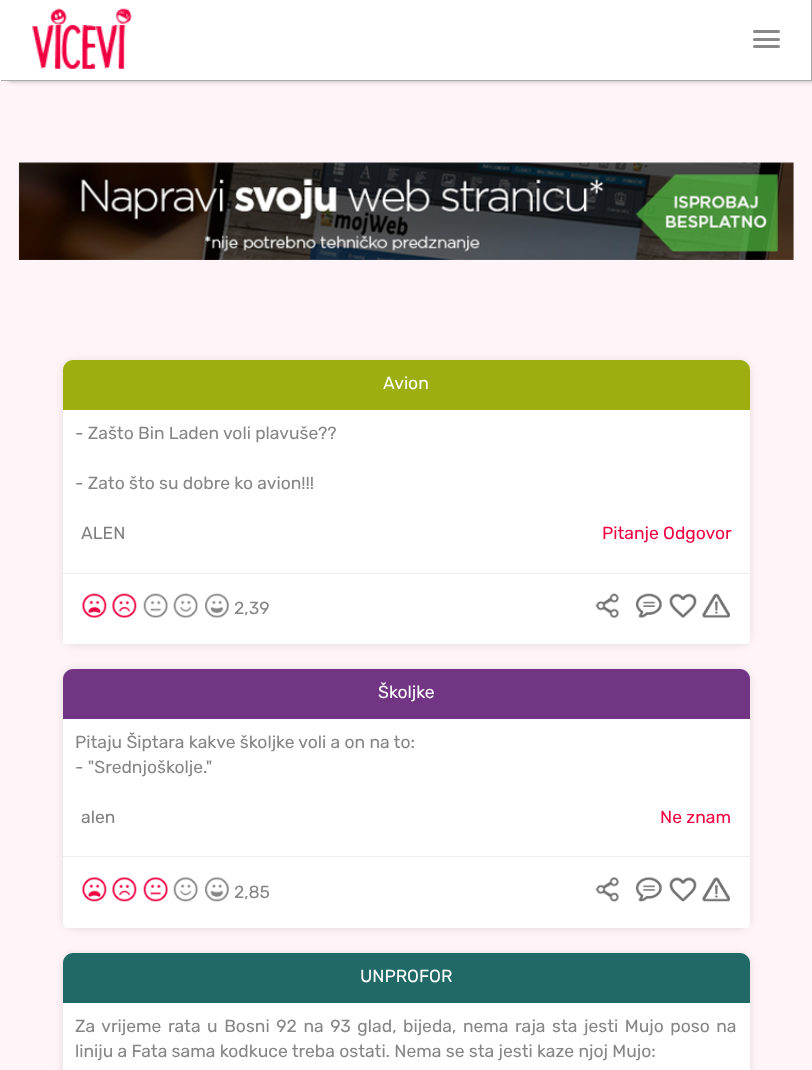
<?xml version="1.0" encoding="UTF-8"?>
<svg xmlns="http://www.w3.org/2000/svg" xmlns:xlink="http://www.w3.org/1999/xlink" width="812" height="1070">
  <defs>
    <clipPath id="clip1"><path d="M 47 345 h 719 v 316 h -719 z m 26 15 h 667 c 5.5 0 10 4.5 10 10 v 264 c 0 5.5 -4.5 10 -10 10 h -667 c -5.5 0 -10 -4.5 -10 -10 v -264 c 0 -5.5 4.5 -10 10 -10 z" clip-rule="evenodd" /></clipPath>
    <clipPath id="clip2"><path d="M 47 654 h 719 v 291 h -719 z m 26 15 h 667 c 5.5 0 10 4.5 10 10 v 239 c 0 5.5 -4.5 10 -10 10 h -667 c -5.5 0 -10 -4.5 -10 -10 v -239 c 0 -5.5 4.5 -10 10 -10 z" clip-rule="evenodd" /></clipPath>
    <clipPath id="clip3"><path d="M 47 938 h 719 v 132 h -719 z m 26 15 h 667 c 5.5 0 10 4.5 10 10 v 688 c 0 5.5 -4.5 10 -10 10 h -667 c -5.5 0 -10 -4.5 -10 -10 v -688 c 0 -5.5 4.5 -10 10 -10 z" clip-rule="evenodd" /></clipPath>
  </defs>
  <rect width="100%" height="100%" fill="#fff5f8" />
  <rect x="8" width="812" height="81" fill="#a9a9a9" filter="blur(2.5px)" />
  <rect x="1" width="810" height="80" fill="#ffffff" />
  <rect x="811" width="1" height="81" fill="#aaaaaa" />
  <rect y="80" width="812" height="1" fill="#aaaaaa" />
  <rect width="1" height="81" fill="#ffffff" />
  <image x="32" y="8" width="100" height="61" xlink:href="image1.png" />
  <rect x="753" y="30" width="27" height="3" rx="1.5" fill="#888888" />
  <rect x="753" y="38" width="27" height="3" rx="1.5" fill="#888888" />
  <rect x="753" y="45" width="27" height="3" rx="1.5" fill="#888888" />
  <image x="18" y="162" width="776" height="98" xlink:href="image2.png" />
  <path d="M 72 360 h 669 c 5 0 9 4 9 9 v 275 h -687 v -275 c 0 -5 4 -9 9 -9 z" fill="#ffffff" />
  <g clip-path="url(#clip1)">
    <rect x="63" y="361" width="687" height="284" rx="10" fill="#000000" fill-opacity="0.1" filter="blur(5px)" />
  </g>
  <path d="M 73 360 h 667 c 5.5 0 10 4.5 10 10 v 40 h -687 v -40 c 0 -5.5 4.5 -10 10 -10 z" fill="#9dae11" />
  <path d="M 63 573 h 687 v 65 c 0 3.5 -2.5 6 -6 6 h -675 c -3.5 0 -6 -2.5 -6 -6 z" fill="#ffffff" />
  <rect x="63" y="573" width="687" height="1" fill="#eeeeee" />
  <image x="82" y="593" width="25" height="25" xlink:href="image3.png" />
  <image x="112" y="593" width="25" height="25" xlink:href="image4.png" />
  <image x="143" y="593" width="25" height="25" xlink:href="image5.png" />
  <image x="173" y="593" width="25" height="25" xlink:href="image6.png" />
  <image x="205" y="593" width="24" height="25" xlink:href="image7.png" />
  <image x="595" y="593" width="24" height="25" xlink:href="image8.png" />
  <image x="635" y="593" width="27" height="25" xlink:href="image9.png" />
  <image x="669" y="593" width="28" height="25" xlink:href="image10.png" />
  <image x="702" y="593" width="28" height="25" xlink:href="image11.png" />
  <path d="M 72 669 h 669 c 5 0 9 4 9 9 v 250 h -687 v -250 c 0 -5 4 -9 9 -9 z" fill="#ffffff" />
  <g clip-path="url(#clip2)">
    <rect x="63" y="670" width="687" height="259" rx="10" fill="#000000" fill-opacity="0.1" filter="blur(5px)" />
  </g>
  <path d="M 73 669 h 667 c 5.5 0 10 4.5 10 10 v 40 h -687 v -40 c 0 -5.5 4.5 -10 10 -10 z" fill="#723584" />
  <path d="M 63 856 h 687 v 66 c 0 3.5 -2.5 6 -6 6 h -675 c -3.5 0 -6 -2.5 -6 -6 z" fill="#ffffff" />
  <rect x="63" y="856" width="687" height="1" fill="#eeeeee" />
  <image x="82" y="877" width="25" height="25" xlink:href="image12.png" />
  <image x="112" y="877" width="25" height="25" xlink:href="image13.png" />
  <image x="143" y="877" width="25" height="25" xlink:href="image14.png" />
  <image x="173" y="877" width="25" height="25" xlink:href="image15.png" />
  <image x="205" y="877" width="24" height="25" xlink:href="image16.png" />
  <image x="595" y="877" width="24" height="25" xlink:href="image17.png" />
  <image x="635" y="877" width="27" height="25" xlink:href="image18.png" />
  <image x="669" y="877" width="28" height="25" xlink:href="image19.png" />
  <image x="702" y="877" width="28" height="25" xlink:href="image20.png" />
  <path d="M 72 953 h 669 c 5 0 9 4 9 9 v 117 h -687 v -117 c 0 -5 4 -9 9 -9 z" fill="#ffffff" />
  <g clip-path="url(#clip3)">
    <rect x="63" y="954" width="687" height="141" rx="10" fill="#000000" fill-opacity="0.1" filter="blur(5px)" />
  </g>
  <path d="M 73 953 h 667 c 5.5 0 10 4.5 10 10 v 40 h -687 v -40 c 0 -5.5 4.5 -10 10 -10 z" fill="#216967" />
  <text x="383" y="389" style="font-family: Rubik; font-size: 17.5px; font-weight: 300; fill: #ffffff">Avion</text>
  <text x="75" y="439" style="font-family: Rubik; font-size: 17.5px; font-weight: 300; fill: #868686">- Zašto Bin Laden voli plavuše??</text>
  <text x="75" y="489" style="font-family: Rubik; font-size: 17.5px; font-weight: 300; fill: #868686">- Zato što su dobre ko avion!!!</text>
  <text x="81" y="539" style="font-family: Rubik; font-size: 17.5px; font-weight: 300; fill: #808080">ALEN</text>
  <text x="602" y="539" style="font-family: Rubik; font-size: 17.5px; font-weight: 300; fill: #f00041">Pitanje Odgovor</text>
  <text x="234" y="614" style="font-family: Rubik; font-size: 17.5px; font-weight: 300; fill: #868686">2,39</text>
  <text x="378" y="698" style="font-family: Rubik; font-size: 17.5px; font-weight: 300; fill: #ffffff">Školjke</text>
  <text x="75" y="748" style="font-family: Rubik; font-size: 17.5px; font-weight: 300; fill: #868686">Pitaju Šiptara kakve školjke voli a on na to:</text>
  <text x="75" y="773" style="font-family: Rubik; font-size: 17.5px; font-weight: 300; fill: #868686">- "Srednjoškolje."</text>
  <text x="81" y="823" style="font-family: Rubik; font-size: 17.5px; font-weight: 300; fill: #808080">alen</text>
  <text x="660" y="823" style="font-family: Rubik; font-size: 17.5px; font-weight: 300; fill: #f00041">Ne znam</text>
  <text x="234" y="898" style="font-family: Rubik; font-size: 17.5px; font-weight: 300; fill: #868686">2,85</text>
  <text x="360" y="982" style="font-family: Rubik; font-size: 17.5px; font-weight: 300; fill: #ffffff">UNPROFOR</text>
  <text x="75" y="1032" word-spacing="2.25" style="font-family: Rubik; font-size: 17.5px; font-weight: 300; fill: #868686">Za vrijeme rata u Bosni 92 na 93 glad, bijeda, nema raja sta jesti Mujo poso na</text>
  <text x="75" y="1057" style="font-family: Rubik; font-size: 17.5px; font-weight: 300; fill: #868686">liniju a Fata sama kodkuce treba ostati. Nema se sta jesti kaze njoj Mujo:</text>
</svg>
